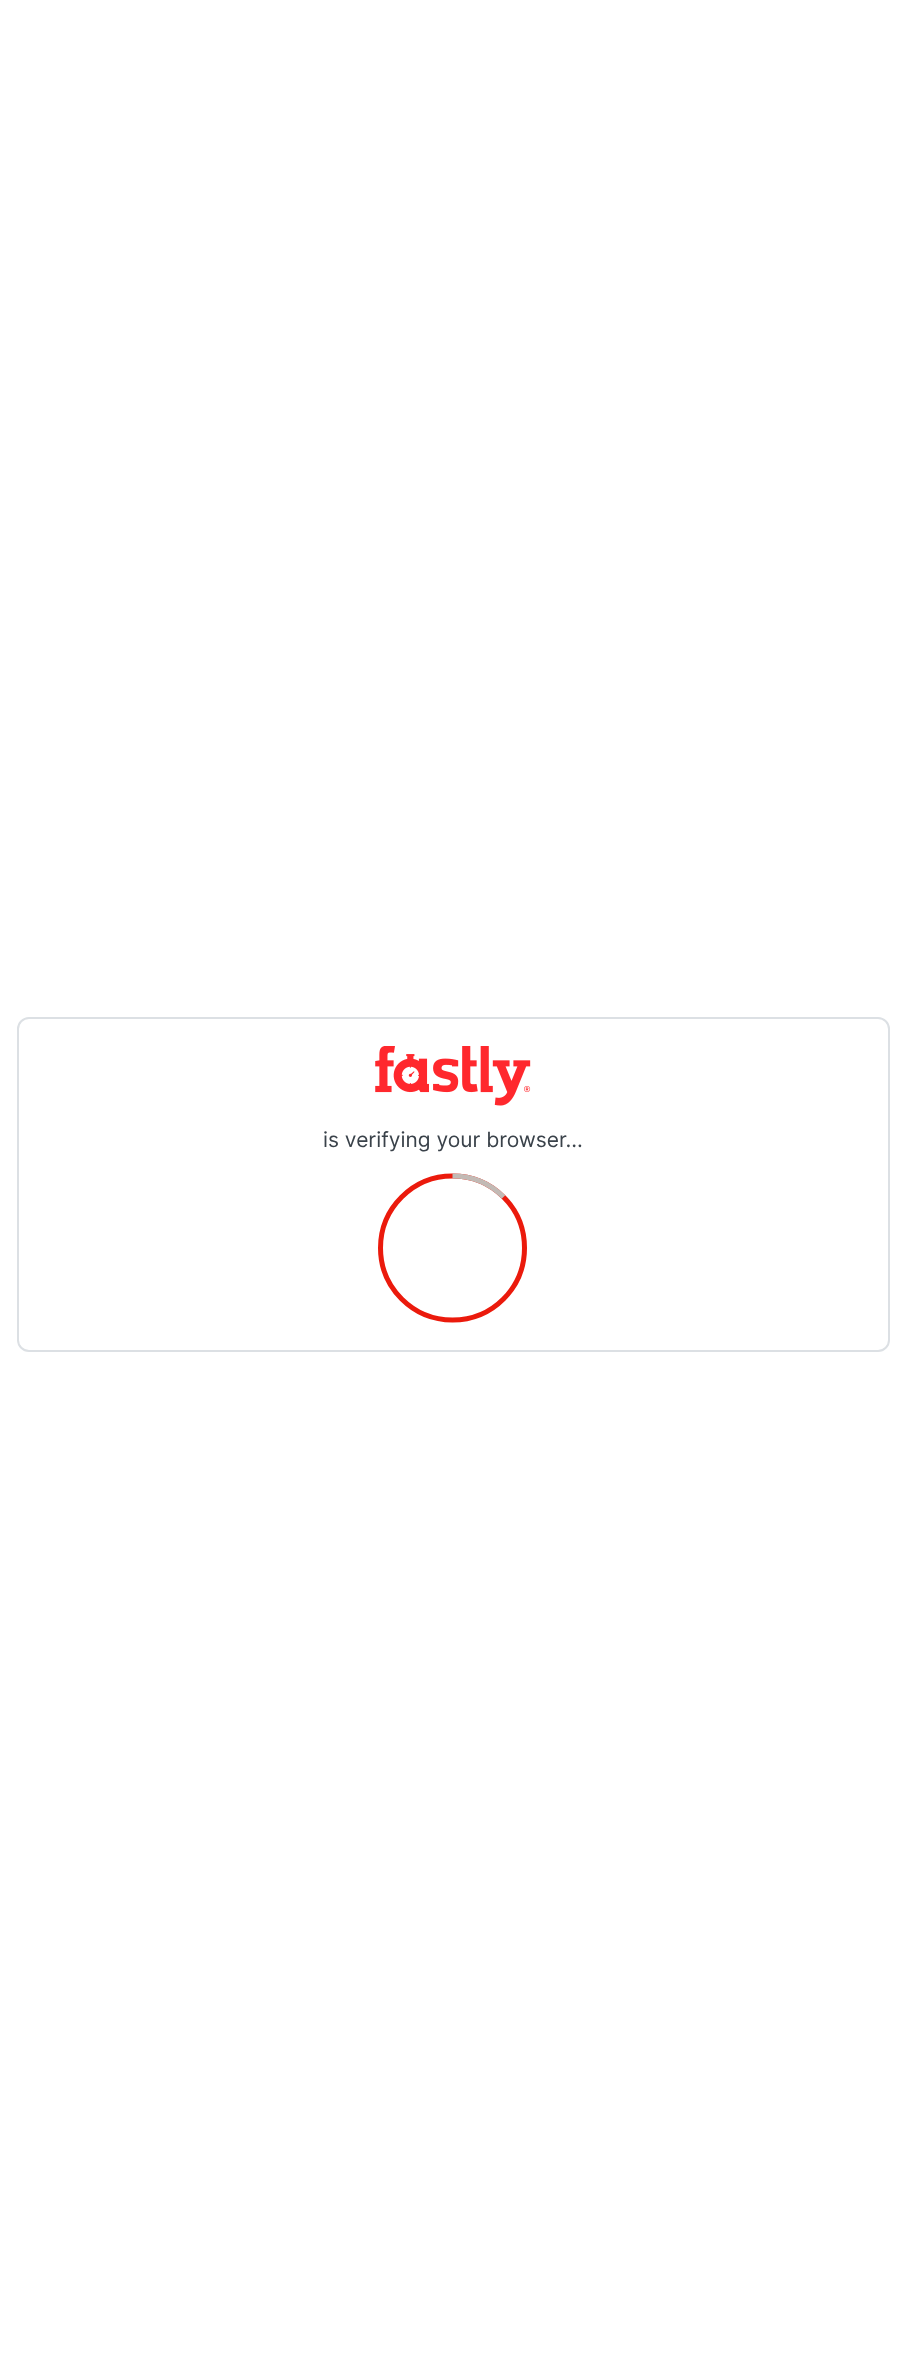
<?xml version="1.0" encoding="UTF-8"?>
<svg xmlns="http://www.w3.org/2000/svg" xmlns:xlink="http://www.w3.org/1999/xlink" width="906" height="2367">
  <rect width="100%" height="100%" fill="#ffffff" />
  <rect x="18" y="1018" width="871" height="333" rx="11" fill="none" stroke="#dce0e4" stroke-width="2" />
  <image x="375" y="1046" width="156" height="60" xlink:href="image1.png" />
  <path d="M 380.5 1248 c 0 -40 32.5 -72 72 -72 c 40 0 72 32 72 72 c 0 40 -32 72 -72 72 c -39.5 0 -72 -32 -72 -72 z" fill="none" stroke="#eb1a0c" stroke-width="5" />
  <path d="M 503.5 1197 c -13.5 -13.5 -31.5 -21 -51 -21" fill="none" stroke="#c2bab5" stroke-width="5" />
  <text x="323" y="1147" style="font-family: Inter; font-size: 21px; fill: #3a424a">is verifying your browser...</text>
</svg>
